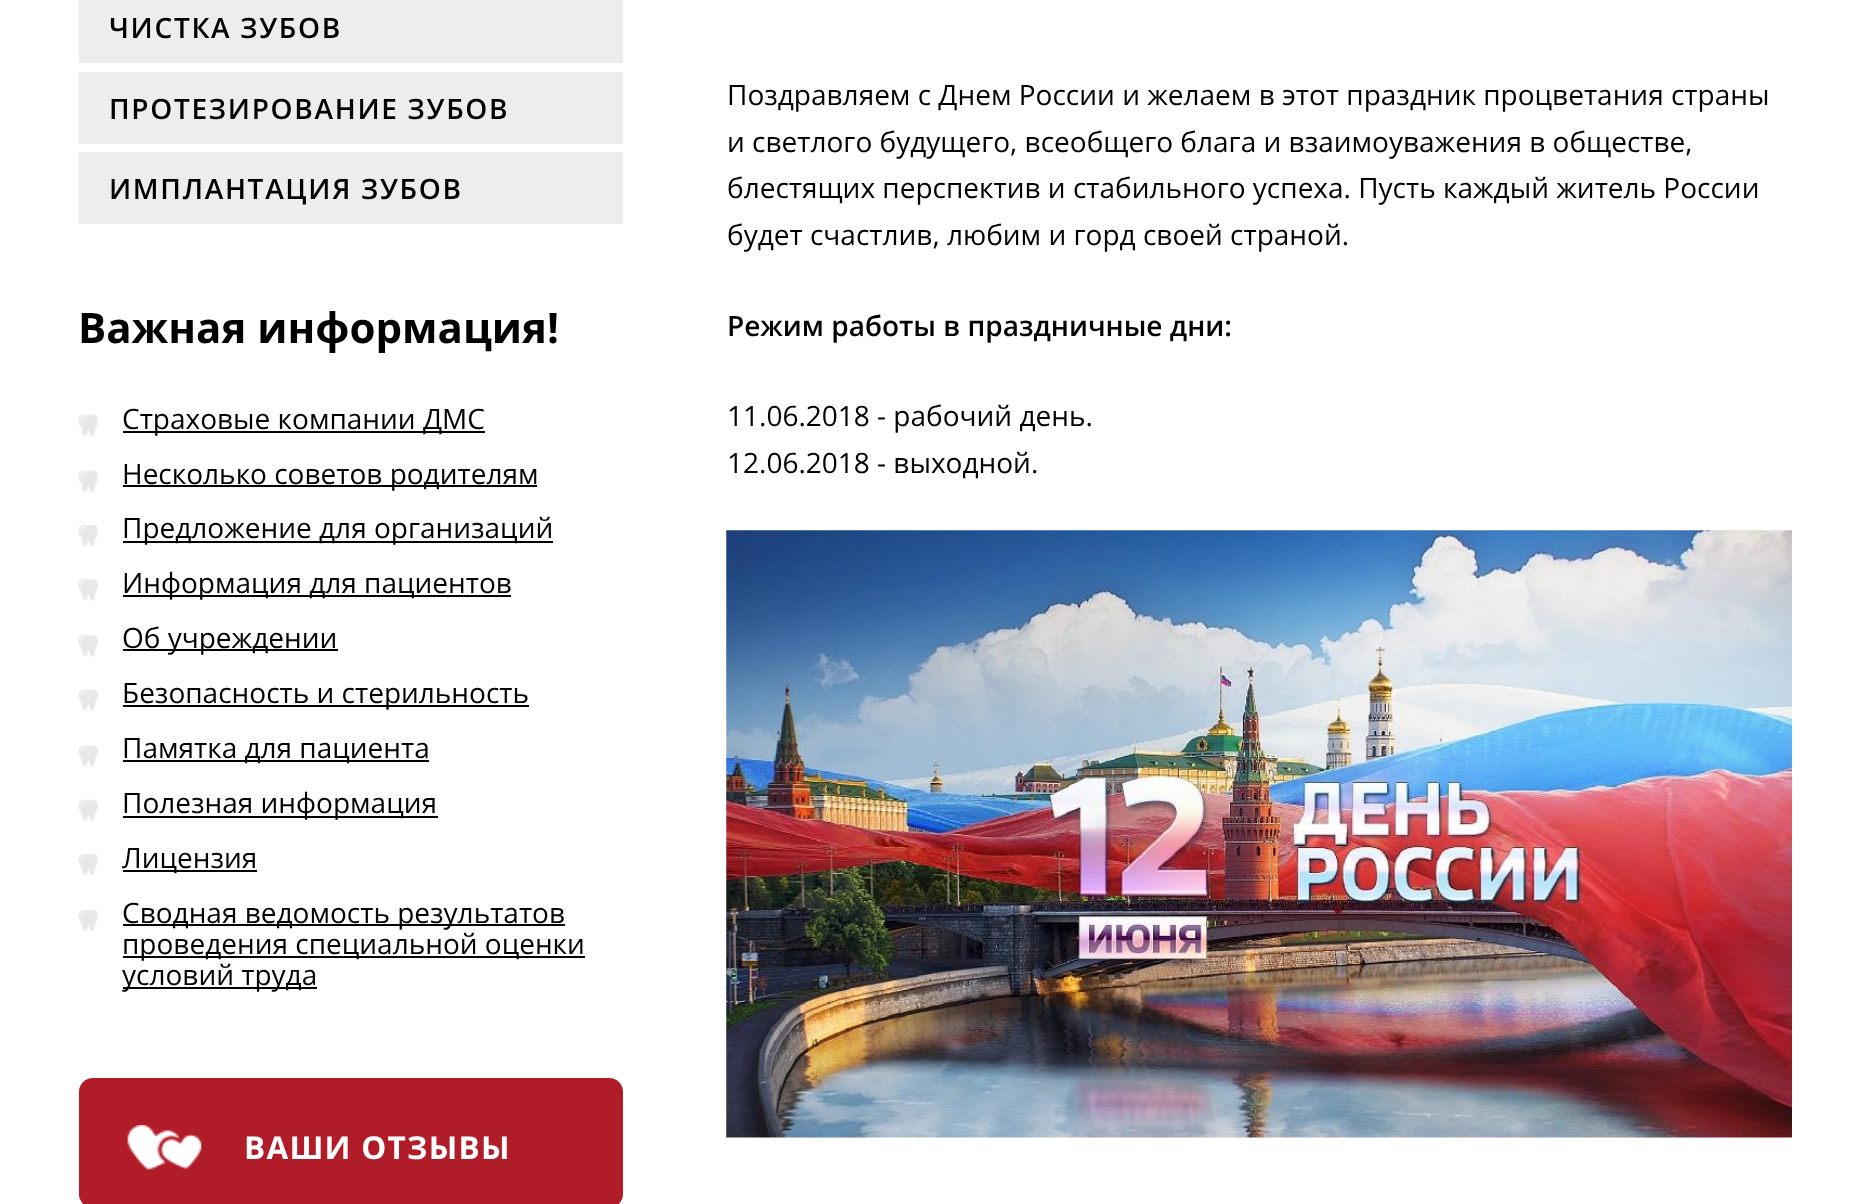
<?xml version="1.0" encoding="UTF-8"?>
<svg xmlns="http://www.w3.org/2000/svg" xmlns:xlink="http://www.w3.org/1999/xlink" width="1870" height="1204">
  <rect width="100%" height="100%" fill="#ffffff" />
  <rect x="79" width="544" height="63" fill="#ededed" />
  <rect x="79" y="72" width="544" height="72" fill="#ededed" />
  <rect x="79" y="152" width="544" height="72" fill="#ededed" />
  <image x="78" y="414" width="20" height="22" xlink:href="image1.png" />
  <rect x="123" y="431" width="362" height="2" fill="#000000" />
  <image x="78" y="470" width="20" height="22" xlink:href="image1.png" />
  <rect x="123" y="485" width="414" height="2" fill="#000000" />
  <image x="78" y="525" width="20" height="21" xlink:href="image2.png" />
  <rect x="123" y="541" width="430" height="2" fill="#000000" />
  <image x="78" y="579" width="20" height="22" xlink:href="image3.png" />
  <rect x="123" y="595" width="388" height="2" fill="#000000" />
  <image x="78" y="635" width="20" height="22" xlink:href="image3.png" />
  <rect x="123" y="649" width="215" height="2" fill="#000000" />
  <image x="78" y="689" width="20" height="22" xlink:href="image4.png" />
  <rect x="123" y="705" width="406" height="2" fill="#000000" />
  <image x="78" y="745" width="20" height="22" xlink:href="image4.png" />
  <rect x="123" y="760" width="306" height="2" fill="#000000" />
  <image x="78" y="799" width="20" height="22" xlink:href="image1.png" />
  <rect x="123" y="816" width="315" height="2" fill="#000000" />
  <image x="78" y="854" width="20" height="21" xlink:href="image2.png" />
  <rect x="123" y="870" width="134" height="2" fill="#000000" />
  <image x="78" y="910" width="20" height="21" xlink:href="image2.png" />
  <rect x="123" y="924" width="442" height="2" fill="#000000" />
  <rect x="123" y="956" width="462" height="2" fill="#000000" />
  <rect x="123" y="987" width="194" height="2" fill="#000000" />
  <rect x="79" y="1078" width="544" height="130" rx="14" fill="#b11c29" />
  <image x="127" y="1125" width="75" height="45" xlink:href="image5.png" />
  <image x="726" y="530" width="1066" height="608" xlink:href="image6.png" />
  <text x="109" y="38" style="font-family: Open Sans; font-size: 28px; font-weight: 600; letter-spacing: 1.7px; fill: #000000">ЧИСТКА ЗУБОВ</text>
  <text x="109" y="119" style="font-family: Open Sans; font-size: 28px; font-weight: 600; letter-spacing: 1.7px; fill: #000000">ПРОТЕЗИРОВАНИЕ ЗУБОВ</text>
  <text x="109" y="199" style="font-family: Open Sans; font-size: 28px; font-weight: 600; letter-spacing: 1.7px; fill: #000000">ИМПЛАНТАЦИЯ ЗУБОВ</text>
  <text x="78" y="343" style="font-family: Open Sans; font-size: 42px; font-weight: bold; fill: #000000">Важная информация!</text>
  <text x="122" y="429" style="font-family: Open Sans; font-size: 28px; fill: #000000">Страховые компании ДМС</text>
  <text x="122" y="484" style="font-family: Open Sans; font-size: 28px; fill: #000000">Несколько советов родителям</text>
  <text x="122" y="538" style="font-family: Open Sans; font-size: 28px; fill: #000000">Предложение для организаций</text>
  <text x="122" y="593" style="font-family: Open Sans; font-size: 28px; fill: #000000">Информация для пациентов</text>
  <text x="122" y="648" style="font-family: Open Sans; font-size: 28px; fill: #000000">Об учреждении</text>
  <text x="122" y="703" style="font-family: Open Sans; font-size: 28px; fill: #000000">Безопасность и стерильность</text>
  <text x="122" y="758" style="font-family: Open Sans; font-size: 28px; fill: #000000">Памятка для пациента</text>
  <text x="122" y="813" style="font-family: Open Sans; font-size: 28px; fill: #000000">Полезная информация</text>
  <text x="122" y="868" style="font-family: Open Sans; font-size: 28px; fill: #000000">Лицензия</text>
  <text x="122" y="923" style="font-family: Open Sans; font-size: 28px; fill: #000000">Сводная ведомость результатов</text>
  <text x="122" y="954" style="font-family: Open Sans; font-size: 28px; fill: #000000">проведения специальной оценки</text>
  <text x="122" y="985" style="font-family: Open Sans; font-size: 28px; fill: #000000">условий труда</text>
  <text x="244" y="1159" style="font-family: Open Sans; font-size: 31.5px; font-weight: bold; letter-spacing: 1.25px; fill: #ffffff">ВАШИ ОТЗЫВЫ</text>
  <text x="727" y="105" style="font-family: Open Sans; font-size: 28px; fill: #000000">Поздравляем с Днем России и желаем в этот праздник процветания страны</text>
  <text x="727" y="152" style="font-family: Open Sans; font-size: 28px; fill: #000000">и светлого будущего, всеобщего блага и взаимоуважения в обществе,</text>
  <text x="727" y="198" style="font-family: Open Sans; font-size: 28px; fill: #000000">блестящих перспектив и стабильного успеха. Пусть каждый житель России</text>
  <text x="727" y="245" style="font-family: Open Sans; font-size: 28px; fill: #000000">будет счастлив, любим и горд своей страной.</text>
  <text x="727" y="336" style="font-family: Open Sans; font-size: 28px; font-weight: 600; fill: #000000">Режим работы в праздничные дни:</text>
  <text x="727" y="426" style="font-family: Open Sans; font-size: 28px; fill: #000000">11.06.2018 - рабочий день.</text>
  <text x="727" y="473" style="font-family: Open Sans; font-size: 28px; fill: #000000">12.06.2018 - выходной.</text>
</svg>
